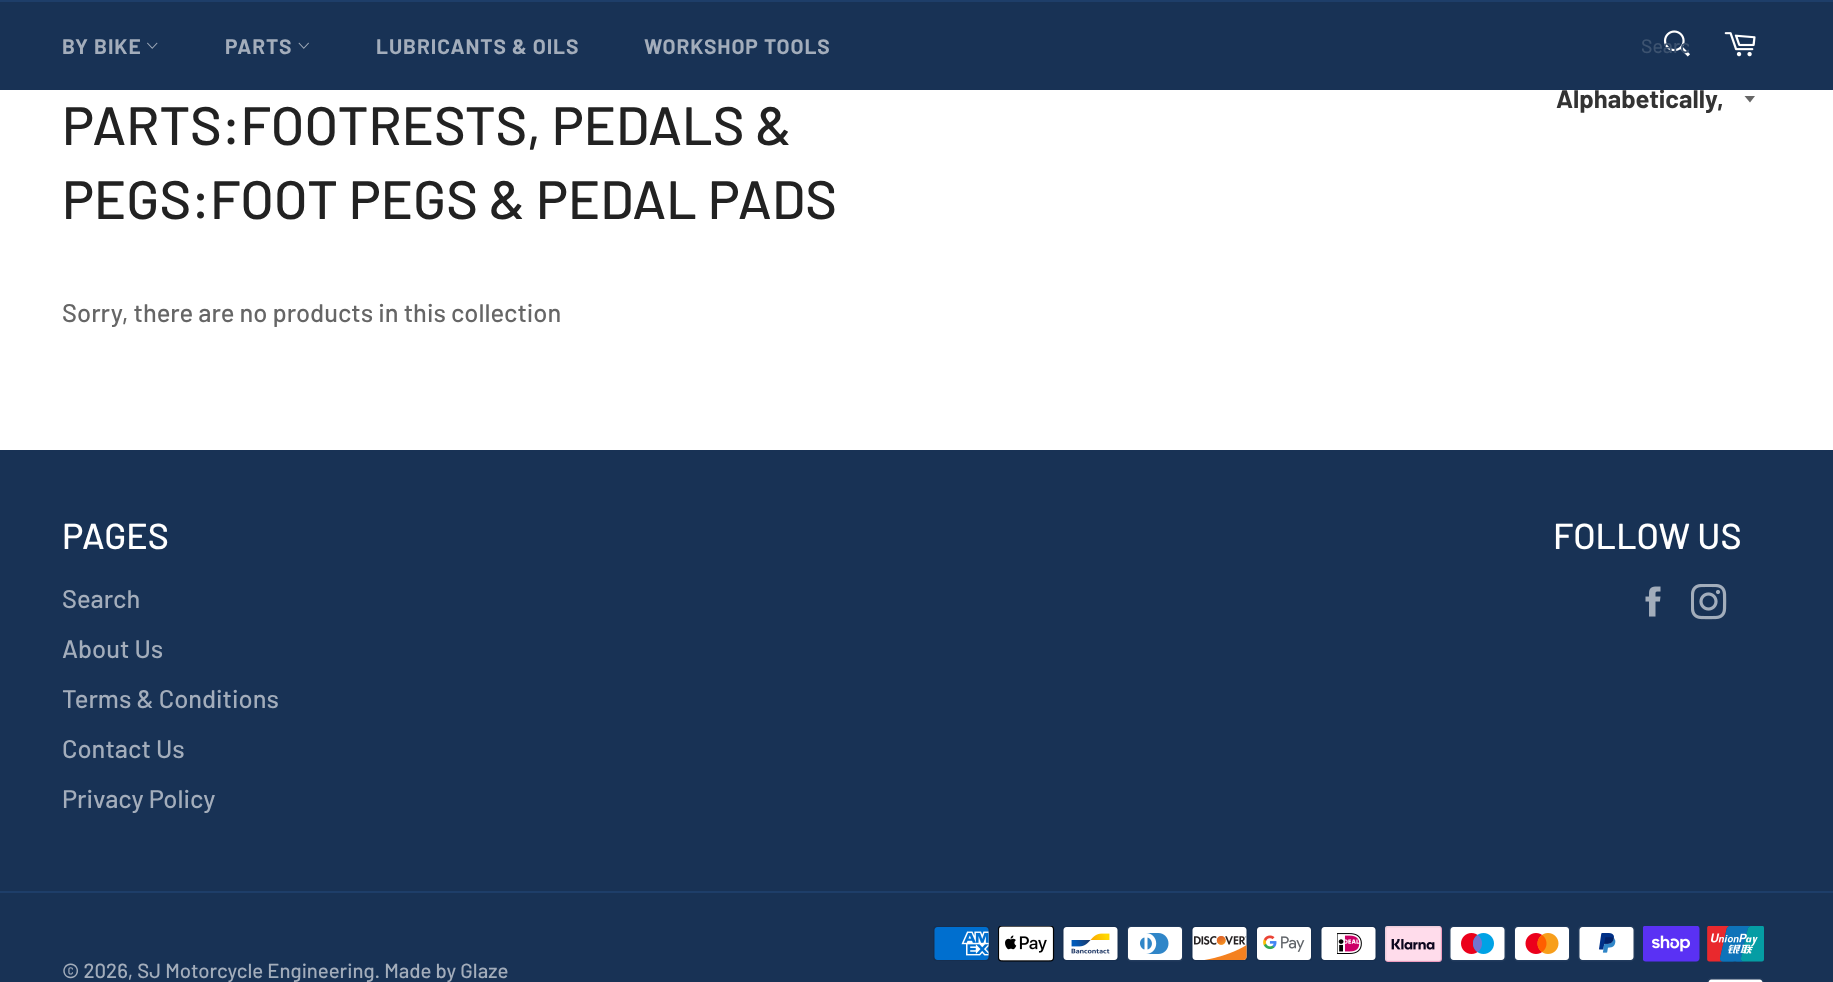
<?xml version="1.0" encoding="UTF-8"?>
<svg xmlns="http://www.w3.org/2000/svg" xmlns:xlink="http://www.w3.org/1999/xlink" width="1833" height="982">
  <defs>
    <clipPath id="clip1"><rect x="1641" y="35" width="48" height="24" /></clipPath>
  </defs>
  <rect width="100%" height="100%" fill="#ffffff" />
  <rect width="1833" height="2" fill="#1e3e69" />
  <path d="M 1744.5 96 l 5.5 6.5 l 5 -6.5 z" fill="#666666" />
  <rect y="450" width="1833" height="532" fill="#183255" />
  <image x="1645" y="586" width="16" height="31" xlink:href="image5.png" />
  <image x="1691" y="584" width="36" height="36" xlink:href="image6.png" />
  <rect y="891" width="1833" height="2" fill="#1e3e69" />
  <image x="933" y="926" width="57" height="35" xlink:href="image7.png" />
  <image x="998" y="926" width="57" height="36" xlink:href="image8.png" />
  <image x="1062" y="926" width="57" height="35" xlink:href="image9.png" />
  <image x="1127" y="926" width="56" height="36" xlink:href="image10.png" />
  <image x="1191" y="926" width="57" height="35" xlink:href="image11.png" />
  <image x="1256" y="926" width="56" height="35" xlink:href="image12.png" />
  <image x="1320" y="926" width="57" height="35" xlink:href="image13.png" />
  <image x="1385" y="926" width="57" height="36" xlink:href="image14.png" />
  <image x="1449" y="926" width="57" height="36" xlink:href="image15.png" />
  <image x="1514" y="926" width="56" height="36" xlink:href="image16.png" />
  <image x="1578" y="926" width="57" height="36" xlink:href="image17.png" />
  <image x="1643" y="926" width="57" height="36" xlink:href="image18.png" />
  <image x="1707" y="926" width="57" height="36" xlink:href="image19.png" />
  <image x="1707" y="978" width="57" height="4" xlink:href="image20.png" />
  <text x="1556" y="108" style="font-family: Barlow; font-size: 25.5px; font-weight: bold; fill: #333333">Alphabetically,</text>
  <rect y="2" width="1833" height="88" fill="#183255" />
  <image x="1663" y="30" width="27" height="27" xlink:href="image3.png" />
  <g clip-path="url(#clip1)">
    <text x="1641" y="53" style="font-family: Barlow; font-size: 19.5px; font-weight: 500; fill: #3d5370">Searc</text>
  </g>
  <image x="1724" y="32" width="32" height="25" xlink:href="image4.png" />
  <text x="644" y="54" style="font-family: Barlow; font-size: 21px; font-weight: bold; letter-spacing: 0.9px; fill: #a3adbb">WORKSHOP TOOLS</text>
  <text x="376" y="54" style="font-family: Barlow; font-size: 21px; font-weight: bold; letter-spacing: 0.9px; fill: #a3adbb">LUBRICANTS &amp; OILS</text>
  <image x="298" y="42" width="11" height="7" xlink:href="image2.png" />
  <text x="225" y="54" style="font-family: Barlow; font-size: 21px; font-weight: bold; letter-spacing: 0.9px; fill: #a3adbb">PARTS</text>
  <image x="147" y="42" width="11" height="7" xlink:href="image1.png" />
  <text x="62" y="54" style="font-family: Barlow; font-size: 21px; font-weight: bold; letter-spacing: 0.9px; fill: #a3adbb">BY BIKE</text>
  <text x="62" y="145" style="font-family: Barlow; font-size: 54px; font-weight: 500; fill: #222222">PARTS:FOOTRESTS, PEDALS &amp;</text>
  <text x="62" y="219" style="font-family: Barlow; font-size: 54px; font-weight: 500; fill: #222222">PEGS:FOOT PEGS &amp; PEDAL PADS</text>
  <text x="62" y="322" style="font-family: Barlow; font-size: 25.5px; font-weight: 500; fill: #666666">Sorry, there are no products in this collection</text>
  <text x="62" y="549" style="font-family: Barlow; font-size: 36px; font-weight: 500; fill: #ffffff">PAGES</text>
  <text x="62" y="608" style="font-family: Barlow; font-size: 25.5px; font-weight: 500; fill: #a3adbb">Search</text>
  <text x="62" y="658" style="font-family: Barlow; font-size: 25.5px; font-weight: 500; fill: #a3adbb">About Us</text>
  <text x="62" y="708" style="font-family: Barlow; font-size: 25.5px; font-weight: 500; fill: #a3adbb">Terms &amp; Conditions</text>
  <text x="62" y="758" style="font-family: Barlow; font-size: 25.5px; font-weight: 500; fill: #a3adbb">Contact Us</text>
  <text x="62" y="808" style="font-family: Barlow; font-size: 25.5px; font-weight: 500; fill: #a3adbb">Privacy Policy</text>
  <text x="1553" y="549" style="font-family: Barlow; font-size: 36px; font-weight: 500; fill: #ffffff">FOLLOW US</text>
  <text x="62" y="978" style="font-family: Barlow; font-size: 20.4px; font-weight: 500; fill: #a3adbb">© 2026, SJ Motorcycle Engineering. Made by Glaze</text>
</svg>
